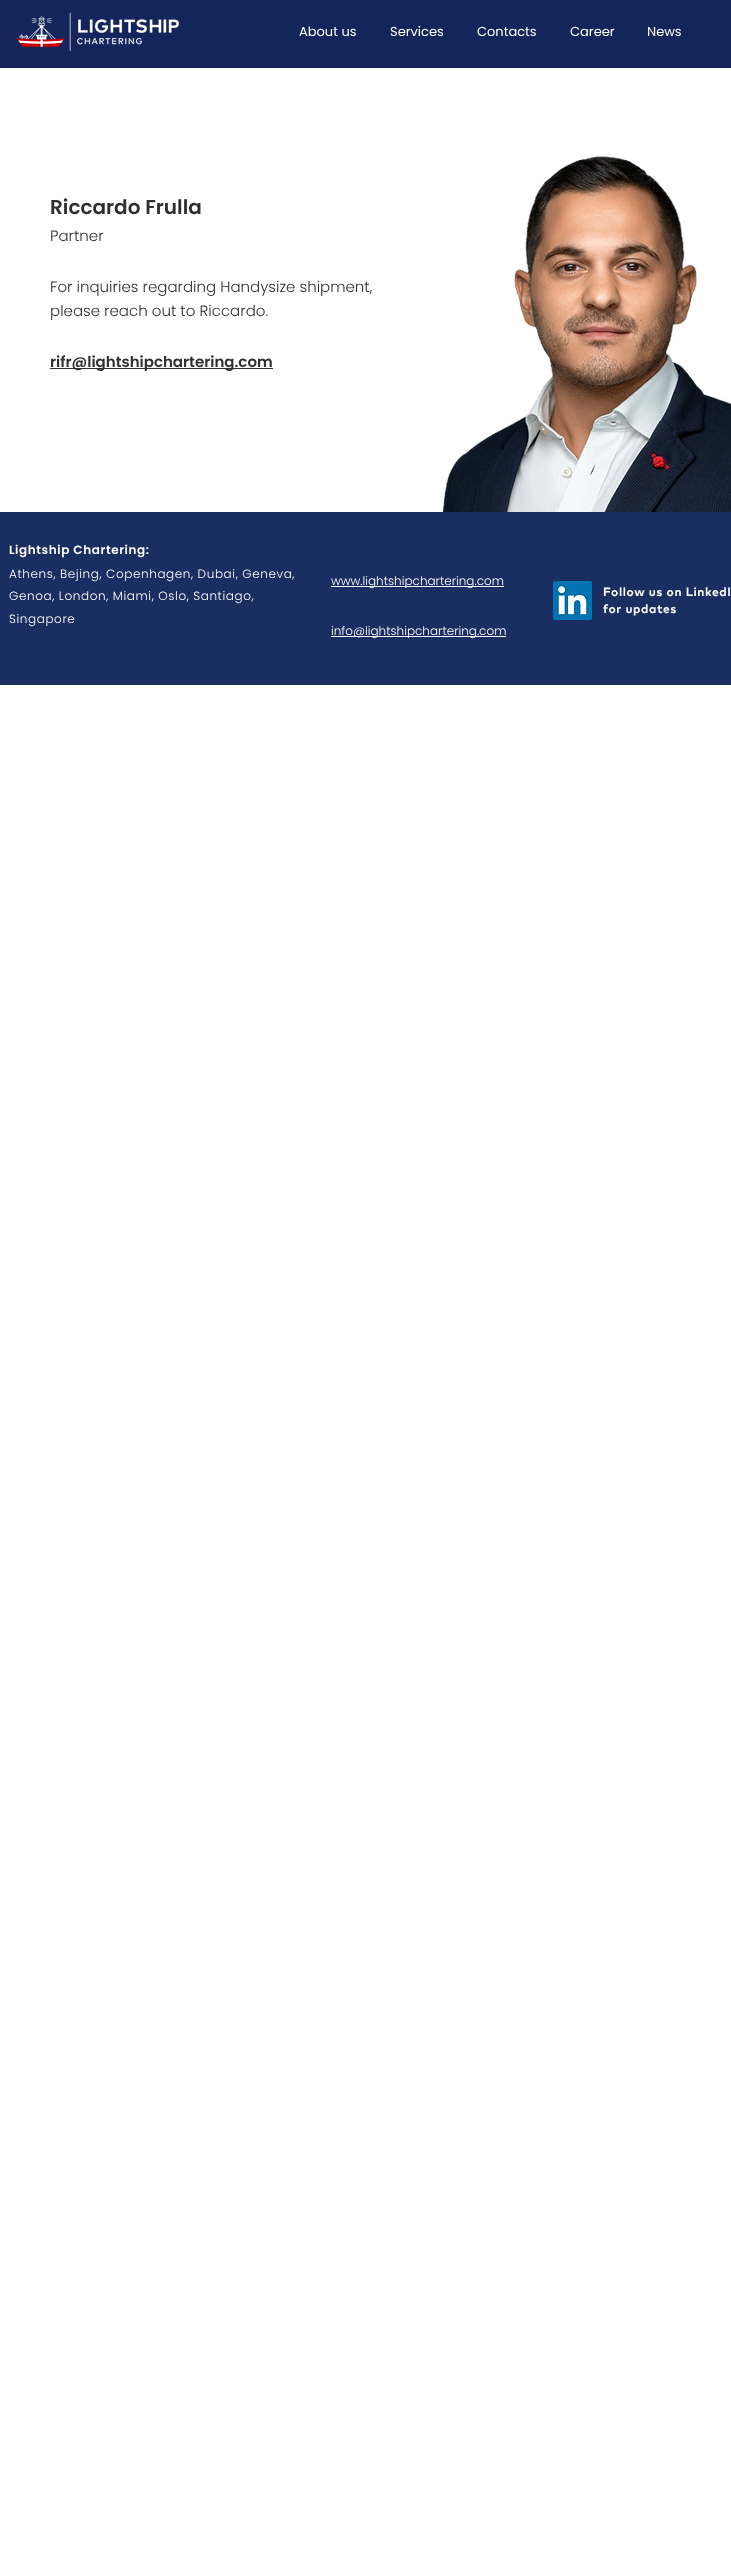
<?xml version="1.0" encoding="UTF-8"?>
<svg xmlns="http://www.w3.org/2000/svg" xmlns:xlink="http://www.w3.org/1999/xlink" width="731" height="2566">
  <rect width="100%" height="100%" fill="#ffffff" />
  <rect width="731" height="68" fill="#13255a" />
  <image x="16" y="12" width="163" height="39" xlink:href="image1.png" />
  <rect x="50" y="368" width="223" height="1" fill="#2f2f2e" />
  <image x="442" y="154" width="289" height="358" xlink:href="image2.png" />
  <rect y="512" width="731" height="173" fill="#1b2e61" />
  <rect x="331" y="586" width="173" height="1" fill="#ffffff" />
  <image x="553" y="581" width="39" height="39" xlink:href="image3.png" />
  <rect x="331" y="636" width="175" height="1" fill="#ffffff" />
  <text x="299" y="36" style="font-family: Poppins; font-size: 13px; fill: #ffffff">About us</text>
  <text x="390" y="36" style="font-family: Poppins; font-size: 13px; fill: #ffffff">Services</text>
  <text x="477" y="36" style="font-family: Poppins; font-size: 13px; fill: #ffffff">Contacts</text>
  <text x="570" y="36" style="font-family: Poppins; font-size: 13px; fill: #ffffff">Career</text>
  <text x="647" y="36" style="font-family: Poppins; font-size: 13px; fill: #ffffff">News</text>
  <text x="50" y="214" style="font-family: Poppins; font-size: 20px; font-weight: 600; fill: #2f2f2e">Riccardo Frulla</text>
  <text x="50" y="241" style="font-family: Poppins; font-size: 15px; font-weight: 300; fill: #2f2f2e">Partner</text>
  <text x="50" y="292" style="font-family: Poppins; font-size: 15px; font-weight: 300; fill: #2f2f2e">For inquiries regarding Handysize shipment,</text>
  <text x="50" y="316" style="font-family: Poppins; font-size: 15px; font-weight: 300; fill: #2f2f2e">please reach out to Riccardo.</text>
  <text x="50" y="367" style="font-family: Poppins; font-size: 15px; font-weight: 600; fill: #2f2f2e">rifr@lightshipchartering.com</text>
  <text x="9" y="554" style="font-family: Poppins; font-size: 12px; font-weight: 600; letter-spacing: 0.6px; fill: #ffffff">Lightship Chartering:</text>
  <text x="9" y="578" style="font-family: Poppins; font-size: 12px; font-weight: 300; letter-spacing: 0.6px; fill: #ffffff">Athens, Bejing, Copenhagen, Dubai, Geneva,</text>
  <text x="9" y="600" style="font-family: Poppins; font-size: 12px; font-weight: 300; letter-spacing: 0.6px; fill: #ffffff">Genoa, London, Miami, Oslo, Santiago,</text>
  <text x="9" y="623" style="font-family: Poppins; font-size: 12px; font-weight: 300; letter-spacing: 0.6px; fill: #ffffff">Singapore</text>
  <text x="331" y="585" style="font-family: Poppins; font-size: 12px; font-weight: 300; fill: #ffffff">www.lightshipchartering.com</text>
  <text x="603" y="596" style="font-family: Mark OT; font-size: 12px; font-weight: bold; letter-spacing: 0.6px; fill: #ffffff">Follow us on LinkedI</text>
  <text x="603" y="613" style="font-family: Mark OT; font-size: 12px; font-weight: bold; letter-spacing: 0.6px; fill: #ffffff">for updates</text>
  <text x="331" y="635" style="font-family: Poppins; font-size: 12px; font-weight: 300; fill: #ffffff">info@lightshipchartering.com</text>
</svg>
